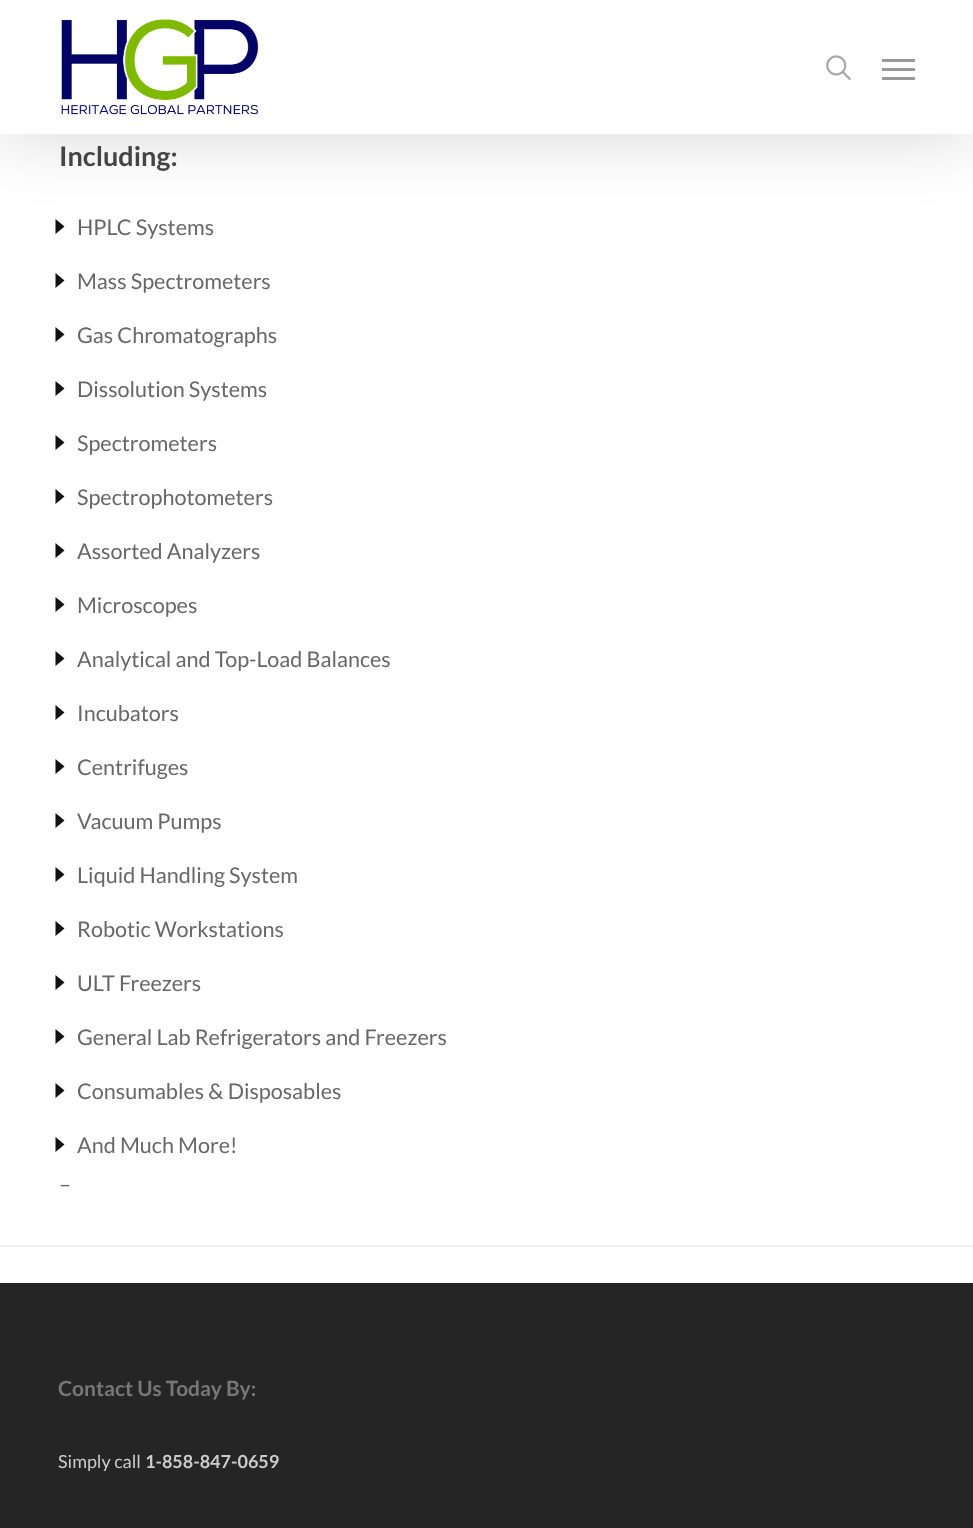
<?xml version="1.0" encoding="UTF-8"?>
<svg xmlns="http://www.w3.org/2000/svg" xmlns:xlink="http://www.w3.org/1999/xlink" width="973" height="1528">
  <rect width="100%" height="100%" fill="#ffffff" />
  <path d="M 55.5 234 v -15 l 9 7.5 z" fill="#111111" />
  <rect y="5" width="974" height="133" fill="#000000" fill-opacity="0.15" filter="blur(34px)" />
  <rect width="973" height="134" fill="#ffffff" />
  <image x="61" y="19" width="198" height="96" xlink:href="image1.png" />
  <image x="826" y="55" width="25" height="25" xlink:href="image2.png" />
  <rect x="882" y="59" width="33" height="3" fill="#999999" />
  <rect x="882" y="77" width="33" height="3" fill="#999999" />
  <rect x="882" y="68" width="33" height="3" fill="#999999" />
  <path d="M 55.5 288 v -15 l 9 7.5 z" fill="#111111" />
  <path d="M 55.5 342 v -15 l 9 7.5 z" fill="#111111" />
  <path d="M 55.5 396 v -15 l 9 7.5 z" fill="#111111" />
  <path d="M 55.5 450 v -15 l 9 7.5 z" fill="#111111" />
  <path d="M 55.5 504 v -15 l 9 7.5 z" fill="#111111" />
  <path d="M 55.5 558 v -15 l 9 7.5 z" fill="#111111" />
  <path d="M 55.5 612 v -15 l 9 7.5 z" fill="#111111" />
  <path d="M 55.5 666 v -15 l 9 7.5 z" fill="#111111" />
  <path d="M 55.5 720 v -15 l 9 7.5 z" fill="#111111" />
  <path d="M 55.5 774 v -15 l 9 7.5 z" fill="#111111" />
  <path d="M 55.5 828 v -15 l 9 7.5 z" fill="#111111" />
  <path d="M 55.5 882 v -15 l 9 7.5 z" fill="#111111" />
  <path d="M 55.5 936 v -15 l 9 7.5 z" fill="#111111" />
  <path d="M 55.5 990 v -15 l 9 7.5 z" fill="#111111" />
  <path d="M 55.5 1044 v -15 l 9 7.5 z" fill="#111111" />
  <path d="M 55.5 1098 v -15 l 9 7.5 z" fill="#111111" />
  <path d="M 55.5 1152 v -15 l 9 7.5 z" fill="#111111" />
  <rect y="1245" width="973" height="2" fill="#eeeeee" />
  <rect y="1283" width="973" height="245" fill="#252525" />
  <text x="59" y="166" style="font-family: Lato; font-size: 27px; font-weight: bold; fill: #444444">Including:</text>
  <text x="77" y="235" style="font-family: Lato; font-size: 21.6px; fill: #676767">HPLC Systems</text>
  <text x="77" y="289" style="font-family: Lato; font-size: 21.6px; fill: #676767">Mass Spectrometers</text>
  <text x="77" y="343" style="font-family: Lato; font-size: 21.6px; fill: #676767">Gas Chromatographs</text>
  <text x="77" y="397" style="font-family: Lato; font-size: 21.6px; fill: #676767">Dissolution Systems</text>
  <text x="77" y="451" style="font-family: Lato; font-size: 21.6px; fill: #676767">Spectrometers</text>
  <text x="77" y="505" style="font-family: Lato; font-size: 21.6px; fill: #676767">Spectrophotometers</text>
  <text x="77" y="559" style="font-family: Lato; font-size: 21.6px; fill: #676767">Assorted Analyzers</text>
  <text x="77" y="613" style="font-family: Lato; font-size: 21.6px; fill: #676767">Microscopes</text>
  <text x="77" y="667" style="font-family: Lato; font-size: 21.6px; fill: #676767">Analytical and Top-Load Balances</text>
  <text x="77" y="721" style="font-family: Lato; font-size: 21.6px; fill: #676767">Incubators</text>
  <text x="77" y="775" style="font-family: Lato; font-size: 21.6px; fill: #676767">Centrifuges</text>
  <text x="77" y="829" style="font-family: Lato; font-size: 21.6px; fill: #676767">Vacuum Pumps</text>
  <text x="77" y="883" style="font-family: Lato; font-size: 21.6px; fill: #676767">Liquid Handling System</text>
  <text x="77" y="937" style="font-family: Lato; font-size: 21.6px; fill: #676767">Robotic Workstations</text>
  <text x="77" y="991" style="font-family: Lato; font-size: 21.6px; fill: #676767">ULT Freezers</text>
  <text x="77" y="1045" style="font-family: Lato; font-size: 21.6px; fill: #676767">General Lab Refrigerators and Freezers</text>
  <text x="77" y="1099" style="font-family: Lato; font-size: 21.6px; fill: #676767">Consumables &amp; Disposables</text>
  <text x="77" y="1153" style="font-family: Lato; font-size: 21.6px; fill: #676767">And Much More!</text>
  <text x="59" y="1192" style="font-family: Lato; font-size: 21.6px; fill: #676767">–</text>
  <text x="58" y="1396" style="font-family: Lato; font-size: 21px; font-weight: bold; fill: #777777">Contact Us Today By:</text>
  <text x="58" y="1468" style="font-family: Lato; font-size: 18px; fill: #cccccc">Simply call</text>
  <text x="145" y="1468" style="font-family: Lato; font-size: 18px; font-weight: bold; fill: #cccccc">1-858-847-0659</text>
</svg>
